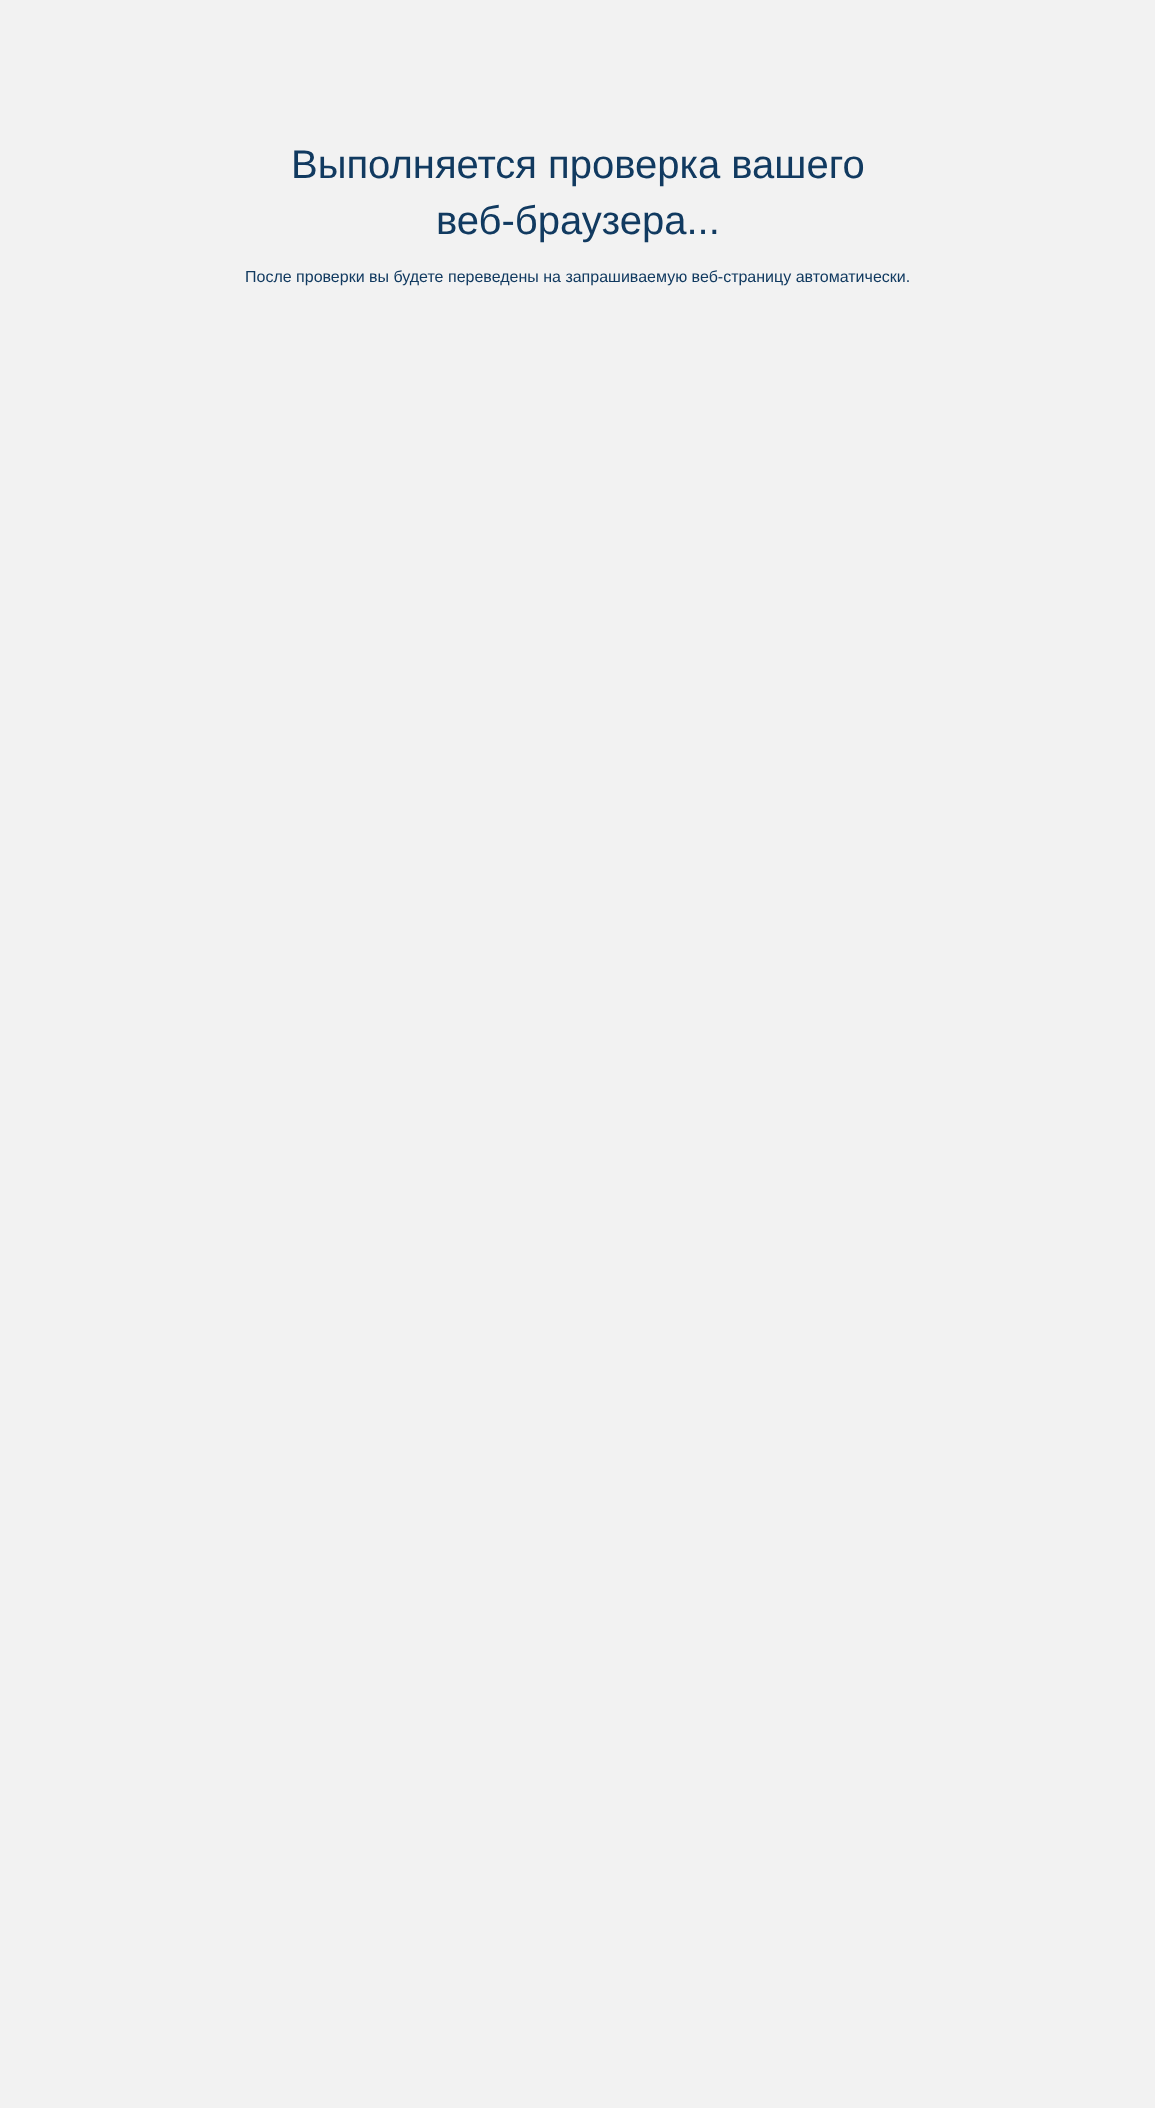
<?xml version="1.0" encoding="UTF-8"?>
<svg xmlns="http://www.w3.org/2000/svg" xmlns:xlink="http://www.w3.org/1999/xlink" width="1155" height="2108">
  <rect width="100%" height="100%" fill="#f2f2f2" />
  <text x="291" y="178" style="font-family: Liberation Sans; font-size: 40px; fill: #113a60">Выполняется проверка вашего</text>
  <text x="436" y="234" style="font-family: Liberation Sans; font-size: 40px; fill: #113a60">веб-браузера...</text>
  <text x="245" y="282" style="font-family: Liberation Sans; font-size: 16px; fill: #113a60">После проверки вы будете переведены на запрашиваемую веб-страницу автоматически.</text>
</svg>
